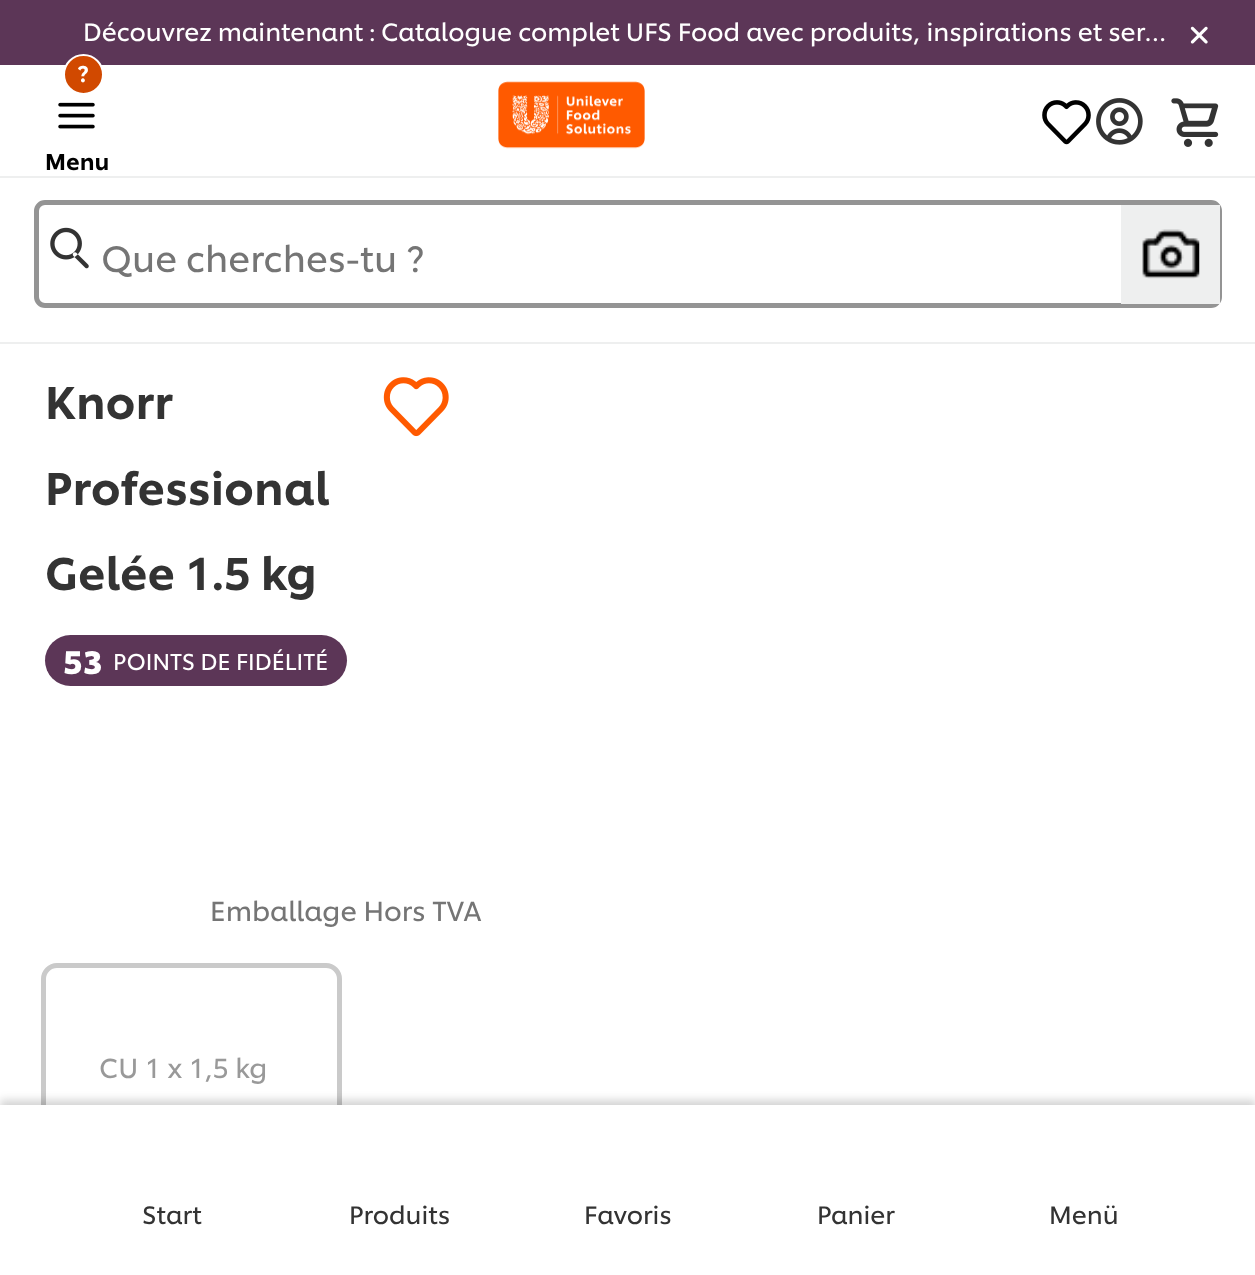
<?xml version="1.0" encoding="UTF-8"?>
<svg xmlns="http://www.w3.org/2000/svg" xmlns:xlink="http://www.w3.org/1999/xlink" width="1255" height="1275">
  <rect width="100%" height="100%" fill="#ffffff" />
  <rect width="1255" height="65" fill="#5c3657" />
  <image x="1190" y="26" width="18" height="18" xlink:href="image1.png" />
  <circle cx="83.5" cy="74.5" r="19.5" fill="#d14900" stroke="#ffffff" stroke-width="2" />
  <image x="58" y="102" width="37" height="27" xlink:href="image2.png" />
  <image x="498" y="81" width="147" height="68" xlink:href="image3.png" />
  <image x="1042" y="100" width="49" height="45" xlink:href="image4.png" />
  <image x="1096" y="98" width="47" height="47" xlink:href="image5.png" />
  <image x="1171" y="98" width="48" height="49" xlink:href="image6.png" />
  <rect y="176" width="1255" height="2" fill="#eeefef" />
  <rect y="342" width="1255" height="2" fill="#eeefef" />
  <rect x="36.5" y="202.5" width="1183" height="103" rx="8.5" fill="none" stroke="#949494" stroke-width="5" />
  <image x="50" y="227" width="39" height="42" xlink:href="image7.png" />
  <rect x="1121" y="205" width="99" height="99" fill="#eeefef" />
  <image x="1142" y="229" width="58" height="50" xlink:href="image8.png" />
  <image x="383" y="377" width="66" height="60" xlink:href="image9.png" />
  <rect x="45" y="635" width="302" height="51" rx="25.5" fill="#5c3657" />
  <rect x="43.5" y="965.5" width="296" height="202" rx="13.5" fill="none" stroke="#cacaca" stroke-width="5" />
  <rect y="1100" width="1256" height="171" fill="#000000" fill-opacity="0.17" filter="blur(4.5px)" />
  <rect y="1105" width="1255" height="170" fill="#ffffff" />
  <text x="83" y="41" style="font-family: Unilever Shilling; font-size: 24.75px; fill: #ffffff">Découvrez maintenant : Catalogue complet UFS Food avec produits, inspirations et ser…</text>
  <text x="77" y="82" style="font-family: Unilever Shilling; font-size: 22.5px; font-weight: 500; fill: #ffffff">?</text>
  <text x="45" y="170" style="font-family: Unilever Shilling; font-size: 22.5px; font-weight: 500; fill: #000000">Menu</text>
  <text x="101" y="272" style="font-family: Unilever Shilling; font-size: 36px; fill: #757575">Que cherches-tu ?</text>
  <text x="45" y="419" style="font-family: Unilever Shilling; font-size: 45px; font-weight: 500; fill: #333333">Knorr</text>
  <text x="45" y="505" style="font-family: Unilever Shilling; font-size: 45px; font-weight: 500; fill: #333333">Professional</text>
  <text x="45" y="590" style="font-family: Unilever Shilling; font-size: 45px; font-weight: 500; fill: #333333">Gelée 1.5 kg</text>
  <text x="63" y="674" style="font-family: Unilever Shilling; font-size: 32px; font-weight: bold; fill: #ffffff">53</text>
  <text x="113" y="670" style="font-family: Unilever Shilling; font-size: 22.5px; fill: #ffffff">POINTS DE FIDÉLITÉ</text>
  <text x="210" y="921" style="font-family: Unilever Shilling; font-size: 27px; fill: #757575">Emballage Hors TVA</text>
  <text x="99" y="1078" style="font-family: Unilever Shilling; font-size: 27px; fill: #999999">CU 1 x 1,5 kg</text>
  <text x="142" y="1224" style="font-family: Unilever Shilling; font-size: 24.75px; fill: #333333">Start</text>
  <text x="349" y="1224" style="font-family: Unilever Shilling; font-size: 24.75px; fill: #333333">Produits</text>
  <text x="584" y="1224" style="font-family: Unilever Shilling; font-size: 24.75px; fill: #333333">Favoris</text>
  <text x="817" y="1224" style="font-family: Unilever Shilling; font-size: 24.75px; fill: #333333">Panier</text>
  <text x="1049" y="1224" style="font-family: Unilever Shilling; font-size: 24.75px; fill: #333333">Menü</text>
</svg>
